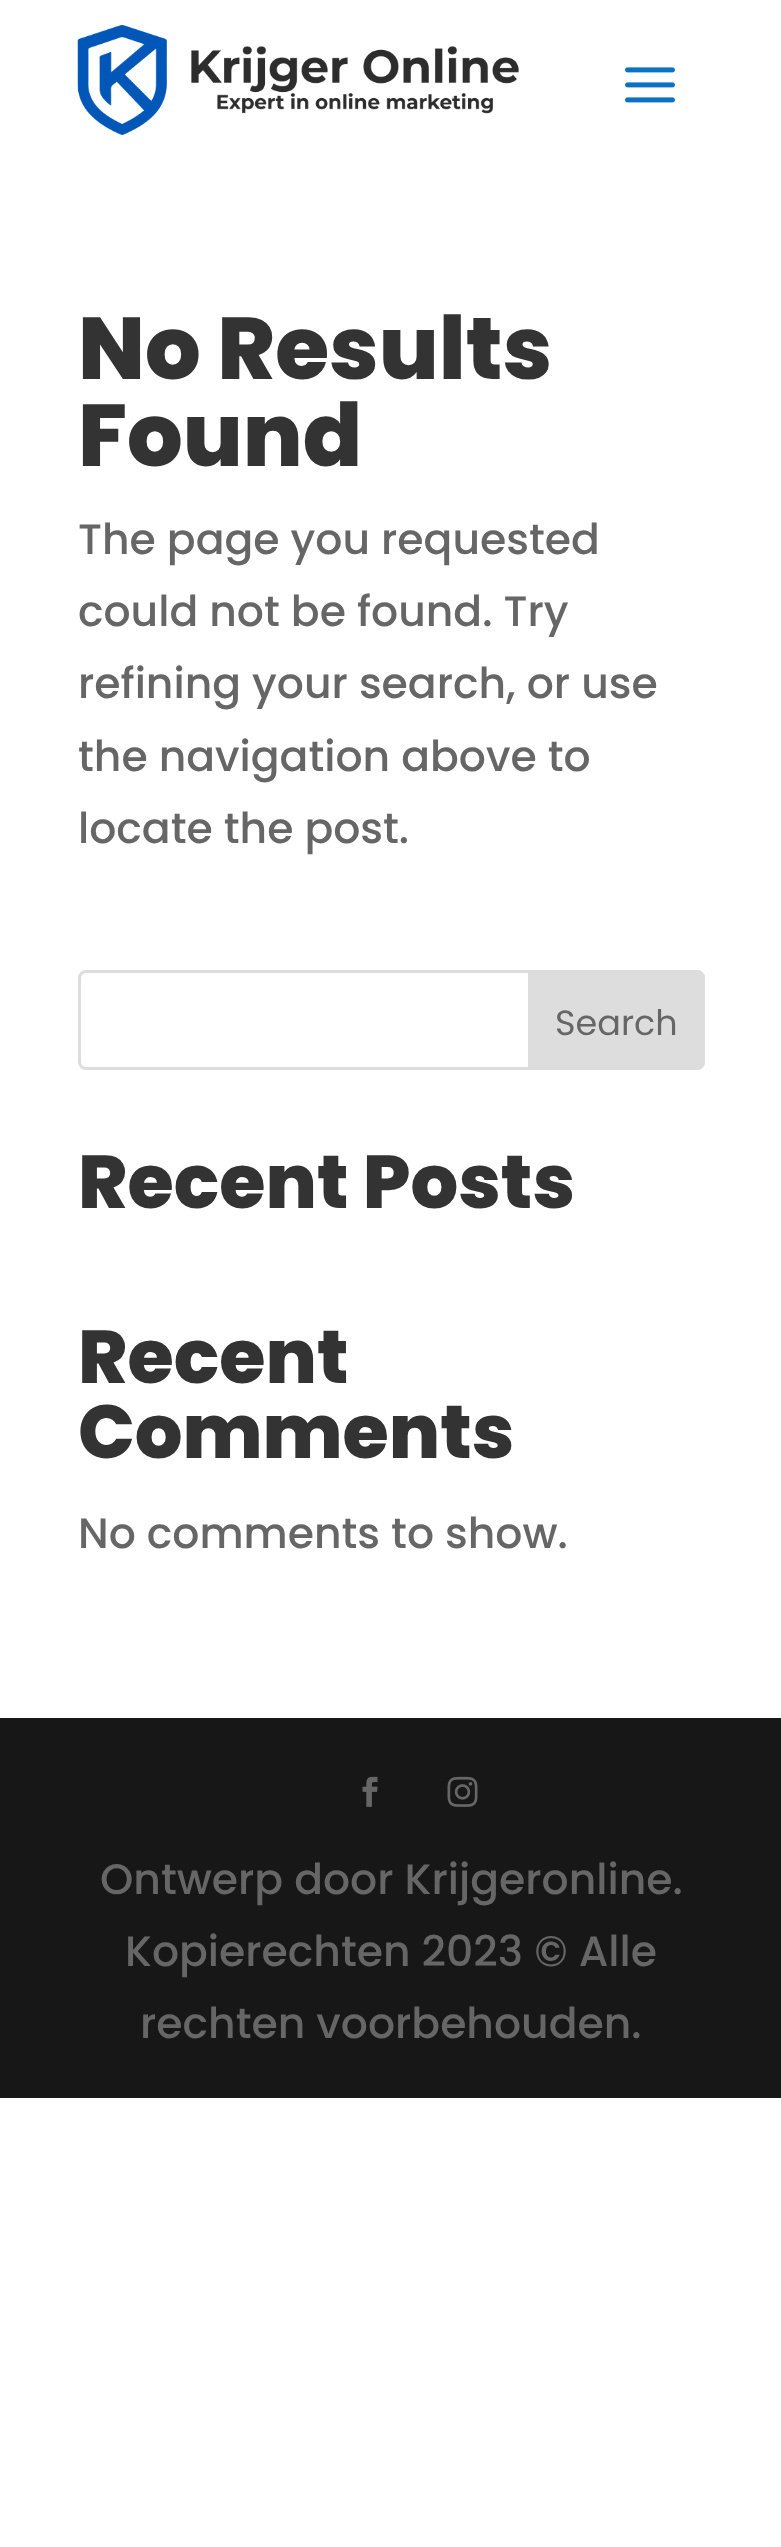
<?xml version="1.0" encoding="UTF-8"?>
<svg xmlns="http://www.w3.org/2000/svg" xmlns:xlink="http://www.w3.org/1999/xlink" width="781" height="2547">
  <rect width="100%" height="100%" fill="#ffffff" />
  <image x="77" y="25" width="442" height="110" xlink:href="image1.png" />
  <image x="625" y="67" width="50" height="36" xlink:href="image2.png" />
  <rect x="79.5" y="971.5" width="624" height="97" rx="6.5" fill="none" stroke="#dddddd" stroke-width="3" />
  <path d="M 529.5 971.5 h 167.5 c 3.5 0 6.5 3 6.5 6.5 v 84 c 0 3.5 -3 6.5 -6.5 6.5 h -167.5 z" fill="#dddddd" stroke="#dddddd" stroke-width="3" />
  <rect y="1718" width="781" height="380" fill="#171717" />
  <image x="362" y="1776" width="16" height="31" xlink:href="image3.png" />
  <image x="447" y="1776" width="31" height="31" xlink:href="image4.png" />
  <text x="78" y="379" style="font-family: Poppins; font-size: 87.5px; font-weight: 800; fill: #333333">No Results</text>
  <text x="78" y="466" style="font-family: Poppins; font-size: 87.5px; font-weight: 800; fill: #333333">Found</text>
  <text x="78" y="554" style="font-family: Poppins; font-size: 42.5px; font-weight: 500; fill: #666666">The page you requested</text>
  <text x="78" y="626" style="font-family: Poppins; font-size: 42.5px; font-weight: 500; fill: #666666">could not be found. Try</text>
  <text x="78" y="698" style="font-family: Poppins; font-size: 42.5px; font-weight: 500; fill: #666666">refining your search, or use</text>
  <text x="78" y="771" style="font-family: Poppins; font-size: 42.5px; font-weight: 500; fill: #666666">the navigation above to</text>
  <text x="78" y="843" style="font-family: Poppins; font-size: 42.5px; font-weight: 500; fill: #666666">locate the post.</text>
  <text x="555" y="1035" style="font-family: Poppins; font-size: 35px; fill: #666666">Search</text>
  <text x="78" y="1208" style="font-family: Poppins; font-size: 75px; font-weight: 800; fill: #333333">Recent Posts</text>
  <text x="78" y="1383" style="font-family: Poppins; font-size: 75px; font-weight: 800; fill: #333333">Recent</text>
  <text x="78" y="1458" style="font-family: Poppins; font-size: 75px; font-weight: 800; fill: #333333">Comments</text>
  <text x="78" y="1548" style="font-family: Poppins; font-size: 42.5px; font-weight: 500; fill: #666666">No comments to show.</text>
  <text x="100" y="1894" style="font-family: Poppins; font-size: 42.5px; font-weight: 500; fill: #666666">Ontwerp door Krijgeronline.</text>
  <text x="125" y="1966" style="font-family: Poppins; font-size: 42.5px; font-weight: 500; fill: #666666">Kopierechten 2023 © Alle</text>
  <text x="140" y="2038" style="font-family: Poppins; font-size: 42.5px; font-weight: 500; fill: #666666">rechten voorbehouden.</text>
</svg>
